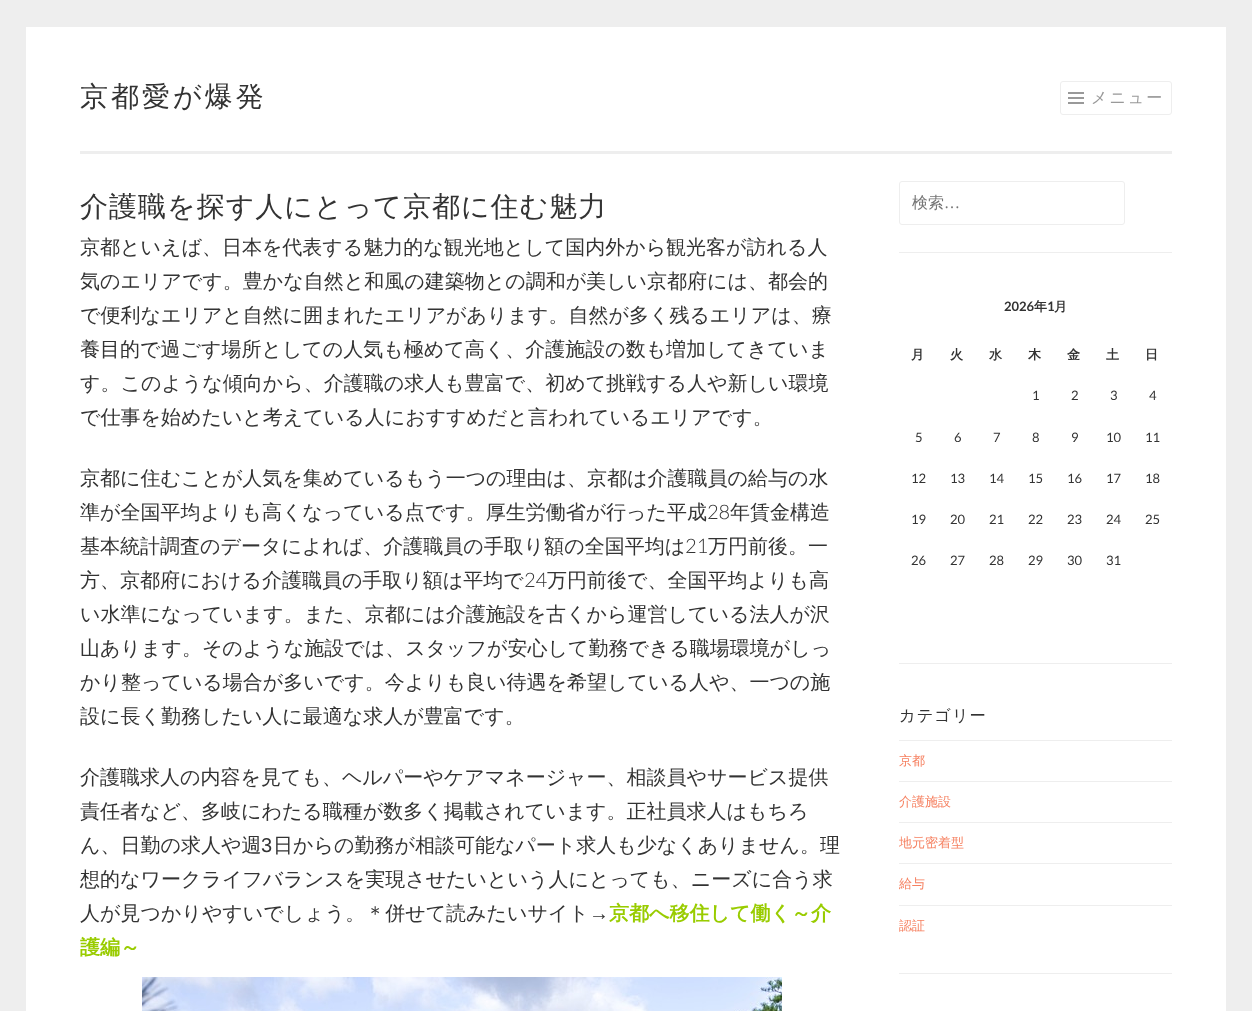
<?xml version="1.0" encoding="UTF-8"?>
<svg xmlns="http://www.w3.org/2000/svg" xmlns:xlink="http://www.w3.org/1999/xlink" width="1252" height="1011">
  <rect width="100%" height="100%" fill="#eeeeee" />
  <rect x="26" y="27" width="1200" height="984" fill="#ffffff" />
  <rect x="80" y="151" width="1092" height="3" fill="#eeeeee" />
  <rect x="1060.5" y="81.5" width="111" height="33" rx="2.5" fill="none" stroke="#eeeeee" />
  <image x="1068" y="92" width="16" height="12" xlink:href="image1.png" />
  <image x="142" y="977" width="640" height="34" xlink:href="image2.png" />
  <rect x="899" y="252" width="273" height="1" fill="#eeeeee" />
  <rect x="899.5" y="181.5" width="225" height="43" rx="2.5" fill="none" stroke="#eeeeee" />
  <rect x="899" y="663" width="273" height="1" fill="#eeeeee" />
  <rect x="899" y="973" width="273" height="1" fill="#eeeeee" />
  <rect x="899" y="740" width="273" height="1" fill="#eeeeee" />
  <rect x="899" y="781" width="273" height="1" fill="#eeeeee" />
  <rect x="899" y="822" width="273" height="1" fill="#eeeeee" />
  <rect x="899" y="863" width="273" height="1" fill="#eeeeee" />
  <rect x="899" y="905" width="273" height="1" fill="#eeeeee" />
  <text x="80" y="106" style="font-family: WenQuanYi Zen Hei; font-size: 28px; font-weight: 500; letter-spacing: 3px; fill: #333333">京都愛が爆発</text>
  <text x="1091" y="103" style="font-family: WenQuanYi Zen Hei; font-size: 16px; font-weight: 500; letter-spacing: 2px; fill: #999999">メニュー</text>
  <text x="80" y="216" style="font-family: WenQuanYi Zen Hei; font-size: 28px; font-weight: 500; letter-spacing: 1px; fill: #333333">介護職を探す人にとって京都に住む魅力</text>
  <text x="80" y="254" style="font-family: WenQuanYi Zen Hei; font-size: 20px; font-weight: 500; fill: #333333">京都といえば、日本を代表する魅力的な観光地として国内外から観光客が訪れる人</text>
  <text x="80" y="288" style="font-family: WenQuanYi Zen Hei; font-size: 20px; font-weight: 500; fill: #333333">気のエリアです。豊かな自然と和風の建築物との調和が美しい京都府には、都会的</text>
  <text x="80" y="322" style="font-family: WenQuanYi Zen Hei; font-size: 20px; font-weight: 500; fill: #333333">で便利なエリアと自然に囲まれたエリアがあります。自然が多く残るエリアは、療</text>
  <text x="80" y="356" style="font-family: WenQuanYi Zen Hei; font-size: 20px; font-weight: 500; fill: #333333">養目的で過ごす場所としての人気も極めて高く、介護施設の数も増加してきていま</text>
  <text x="80" y="390" style="font-family: WenQuanYi Zen Hei; font-size: 20px; font-weight: 500; fill: #333333">す。このような傾向から、介護職の求人も豊富で、初めて挑戦する人や新しい環境</text>
  <text x="80" y="424" style="font-family: WenQuanYi Zen Hei; font-size: 20px; font-weight: 500; fill: #333333">で仕事を始めたいと考えている人におすすめだと言われているエリアです。</text>
  <text x="80" y="485" style="font-family: WenQuanYi Zen Hei; font-size: 20px; font-weight: 500; fill: #333333">京都に住むことが人気を集めているもう一つの理由は、京都は介護職員の給与の水</text>
  <text x="80" y="519" style="font-family: WenQuanYi Zen Hei; font-size: 20px; font-weight: 500; fill: #333333">準が全国平均よりも高くなっている点です。厚生労働省が行った平成</text>
  <text x="707" y="519" style="font-family: Lato; font-size: 20px; font-weight: 300; fill: #333333">28</text>
  <text x="730" y="519" style="font-family: WenQuanYi Zen Hei; font-size: 20px; font-weight: 500; fill: #333333">年賃金構造</text>
  <text x="80" y="553" style="font-family: WenQuanYi Zen Hei; font-size: 20px; font-weight: 500; fill: #333333">基本統計調査のデータによれば、介護職員の手取り額の全国平均は</text>
  <text x="685" y="553" style="font-family: Lato; font-size: 20px; font-weight: 300; fill: #333333">21</text>
  <text x="708" y="553" style="font-family: WenQuanYi Zen Hei; font-size: 20px; font-weight: 500; fill: #333333">万円前後。一</text>
  <text x="80" y="587" style="font-family: WenQuanYi Zen Hei; font-size: 20px; font-weight: 500; fill: #333333">方、京都府における介護職員の手取り額は平均で</text>
  <text x="524" y="587" style="font-family: Lato; font-size: 20px; font-weight: 300; fill: #333333">24</text>
  <text x="547" y="587" style="font-family: WenQuanYi Zen Hei; font-size: 20px; font-weight: 500; fill: #333333">万円前後で、全国平均よりも高</text>
  <text x="80" y="621" style="font-family: WenQuanYi Zen Hei; font-size: 20px; font-weight: 500; fill: #333333">い水準になっています。また、京都には介護施設を古くから運営している法人が沢</text>
  <text x="80" y="655" style="font-family: WenQuanYi Zen Hei; font-size: 20px; font-weight: 500; fill: #333333">山あります。そのような施設では、スタッフが安心して勤務できる職場環境がしっ</text>
  <text x="80" y="689" style="font-family: WenQuanYi Zen Hei; font-size: 20px; font-weight: 500; fill: #333333">かり整っている場合が多いです。今よりも良い待遇を希望している人や、一つの施</text>
  <text x="80" y="723" style="font-family: WenQuanYi Zen Hei; font-size: 20px; font-weight: 500; fill: #333333">設に長く勤務したい人に最適な求人が豊富です。</text>
  <text x="80" y="784" style="font-family: WenQuanYi Zen Hei; font-size: 20px; font-weight: 500; fill: #333333">介護職求人の内容を見ても、ヘルパーやケアマネージャー、相談員やサービス提供</text>
  <text x="80" y="818" style="font-family: WenQuanYi Zen Hei; font-size: 20px; font-weight: 500; fill: #333333">責任者など、多岐にわたる職種が数多く掲載されています。正社員求人はもちろ</text>
  <text x="80" y="852" style="font-family: WenQuanYi Zen Hei; font-size: 20px; font-weight: 500; fill: #333333">ん、日勤の求人や週</text>
  <text x="261" y="852" style="font-family: Liberation Sans; font-size: 20px; fill: #333333">3</text>
  <text x="273" y="852" style="font-family: WenQuanYi Zen Hei; font-size: 20px; font-weight: 500; fill: #333333">日からの勤務が相談可能なパート求人も少なくありません。理</text>
  <text x="80" y="886" style="font-family: WenQuanYi Zen Hei; font-size: 20px; font-weight: 500; fill: #333333">想的なワークライフバランスを実現させたいという人にとっても、ニーズに合う求</text>
  <text x="80" y="920" style="font-family: WenQuanYi Zen Hei; font-size: 20px; font-weight: 500; fill: #333333">人が見つかりやすいでしょう。＊併せて読みたいサイト</text>
  <text x="589" y="920" style="font-family: Liberation Sans; font-size: 20px; fill: #333333">→</text>
  <text x="609" y="920" style="font-family: WenQuanYi Zen Hei; font-size: 20px; font-weight: bold; fill: #99cc00">京都へ移住して働く～介</text>
  <text x="80" y="954" style="font-family: WenQuanYi Zen Hei; font-size: 20px; font-weight: bold; fill: #99cc00">護編～</text>
  <text x="912" y="208" style="font-family: WenQuanYi Zen Hei; font-size: 16px; font-weight: 500; fill: #757575">検索</text>
  <text x="944" y="208" style="font-family: Liberation Serif; font-size: 16px; fill: #757575">…</text>
  <text x="1004" y="311" style="font-family: Lato; font-size: 13px; font-weight: bold; fill: #333333">2026</text>
  <text x="1034" y="311" style="font-family: WenQuanYi Zen Hei; font-size: 13px; font-weight: bold; fill: #333333">年</text>
  <text x="1047" y="311" style="font-family: Lato; font-size: 13px; font-weight: bold; fill: #333333">1</text>
  <text x="1054" y="311" style="font-family: WenQuanYi Zen Hei; font-size: 13px; font-weight: bold; fill: #333333">月</text>
  <text x="911" y="359" style="font-family: WenQuanYi Zen Hei; font-size: 13px; font-weight: bold; letter-spacing: 2px; fill: #333333">月</text>
  <text x="950" y="359" style="font-family: WenQuanYi Zen Hei; font-size: 13px; font-weight: bold; letter-spacing: 2px; fill: #333333">火</text>
  <text x="989" y="359" style="font-family: WenQuanYi Zen Hei; font-size: 13px; font-weight: bold; letter-spacing: 2px; fill: #333333">水</text>
  <text x="1028" y="359" style="font-family: WenQuanYi Zen Hei; font-size: 13px; font-weight: bold; letter-spacing: 2px; fill: #333333">木</text>
  <text x="1067" y="359" style="font-family: WenQuanYi Zen Hei; font-size: 13px; font-weight: bold; letter-spacing: 2px; fill: #333333">金</text>
  <text x="1106" y="359" style="font-family: WenQuanYi Zen Hei; font-size: 13px; font-weight: bold; letter-spacing: 2px; fill: #333333">土</text>
  <text x="1145" y="359" style="font-family: WenQuanYi Zen Hei; font-size: 13px; font-weight: bold; letter-spacing: 2px; fill: #333333">日</text>
  <text x="1032" y="400" style="font-family: Lato; font-size: 13px; fill: #333333">1</text>
  <text x="1071" y="400" style="font-family: Lato; font-size: 13px; fill: #333333">2</text>
  <text x="1110" y="400" style="font-family: Lato; font-size: 13px; fill: #333333">3</text>
  <text x="1149" y="400" style="font-family: Lato; font-size: 13px; fill: #333333">4</text>
  <text x="915" y="442" style="font-family: Lato; font-size: 13px; fill: #333333">5</text>
  <text x="954" y="442" style="font-family: Lato; font-size: 13px; fill: #333333">6</text>
  <text x="993" y="442" style="font-family: Lato; font-size: 13px; fill: #333333">7</text>
  <text x="1032" y="442" style="font-family: Lato; font-size: 13px; fill: #333333">8</text>
  <text x="1071" y="442" style="font-family: Lato; font-size: 13px; fill: #333333">9</text>
  <text x="1106" y="442" style="font-family: Lato; font-size: 13px; fill: #333333">10</text>
  <text x="1145" y="442" style="font-family: Lato; font-size: 13px; fill: #333333">11</text>
  <text x="911" y="483" style="font-family: Lato; font-size: 13px; fill: #333333">12</text>
  <text x="950" y="483" style="font-family: Lato; font-size: 13px; fill: #333333">13</text>
  <text x="989" y="483" style="font-family: Lato; font-size: 13px; fill: #333333">14</text>
  <text x="1028" y="483" style="font-family: Lato; font-size: 13px; fill: #333333">15</text>
  <text x="1067" y="483" style="font-family: Lato; font-size: 13px; fill: #333333">16</text>
  <text x="1106" y="483" style="font-family: Lato; font-size: 13px; fill: #333333">17</text>
  <text x="1145" y="483" style="font-family: Lato; font-size: 13px; fill: #333333">18</text>
  <text x="911" y="524" style="font-family: Lato; font-size: 13px; fill: #333333">19</text>
  <text x="950" y="524" style="font-family: Lato; font-size: 13px; fill: #333333">20</text>
  <text x="989" y="524" style="font-family: Lato; font-size: 13px; fill: #333333">21</text>
  <text x="1028" y="524" style="font-family: Lato; font-size: 13px; fill: #333333">22</text>
  <text x="1067" y="524" style="font-family: Lato; font-size: 13px; fill: #333333">23</text>
  <text x="1106" y="524" style="font-family: Lato; font-size: 13px; fill: #333333">24</text>
  <text x="1145" y="524" style="font-family: Lato; font-size: 13px; fill: #333333">25</text>
  <text x="911" y="565" style="font-family: Lato; font-size: 13px; fill: #333333">26</text>
  <text x="950" y="565" style="font-family: Lato; font-size: 13px; fill: #333333">27</text>
  <text x="989" y="565" style="font-family: Lato; font-size: 13px; fill: #333333">28</text>
  <text x="1028" y="565" style="font-family: Lato; font-size: 13px; fill: #333333">29</text>
  <text x="1067" y="565" style="font-family: Lato; font-size: 13px; fill: #333333">30</text>
  <text x="1106" y="565" style="font-family: Lato; font-size: 13px; fill: #333333">31</text>
  <text x="899" y="721" style="font-family: WenQuanYi Zen Hei; font-size: 16.25px; font-weight: 500; letter-spacing: 1px; fill: #333333">カテゴリー</text>
  <text x="899" y="765" style="font-family: WenQuanYi Zen Hei; font-size: 13px; font-weight: 500; fill: #f68060">京都</text>
  <text x="899" y="806" style="font-family: WenQuanYi Zen Hei; font-size: 13px; font-weight: 500; fill: #f68060">介護施設</text>
  <text x="899" y="847" style="font-family: WenQuanYi Zen Hei; font-size: 13px; font-weight: 500; fill: #f68060">地元密着型</text>
  <text x="899" y="888" style="font-family: WenQuanYi Zen Hei; font-size: 13px; font-weight: 500; fill: #f68060">給与</text>
  <text x="899" y="930" style="font-family: WenQuanYi Zen Hei; font-size: 13px; font-weight: 500; fill: #f68060">認証</text>
</svg>
